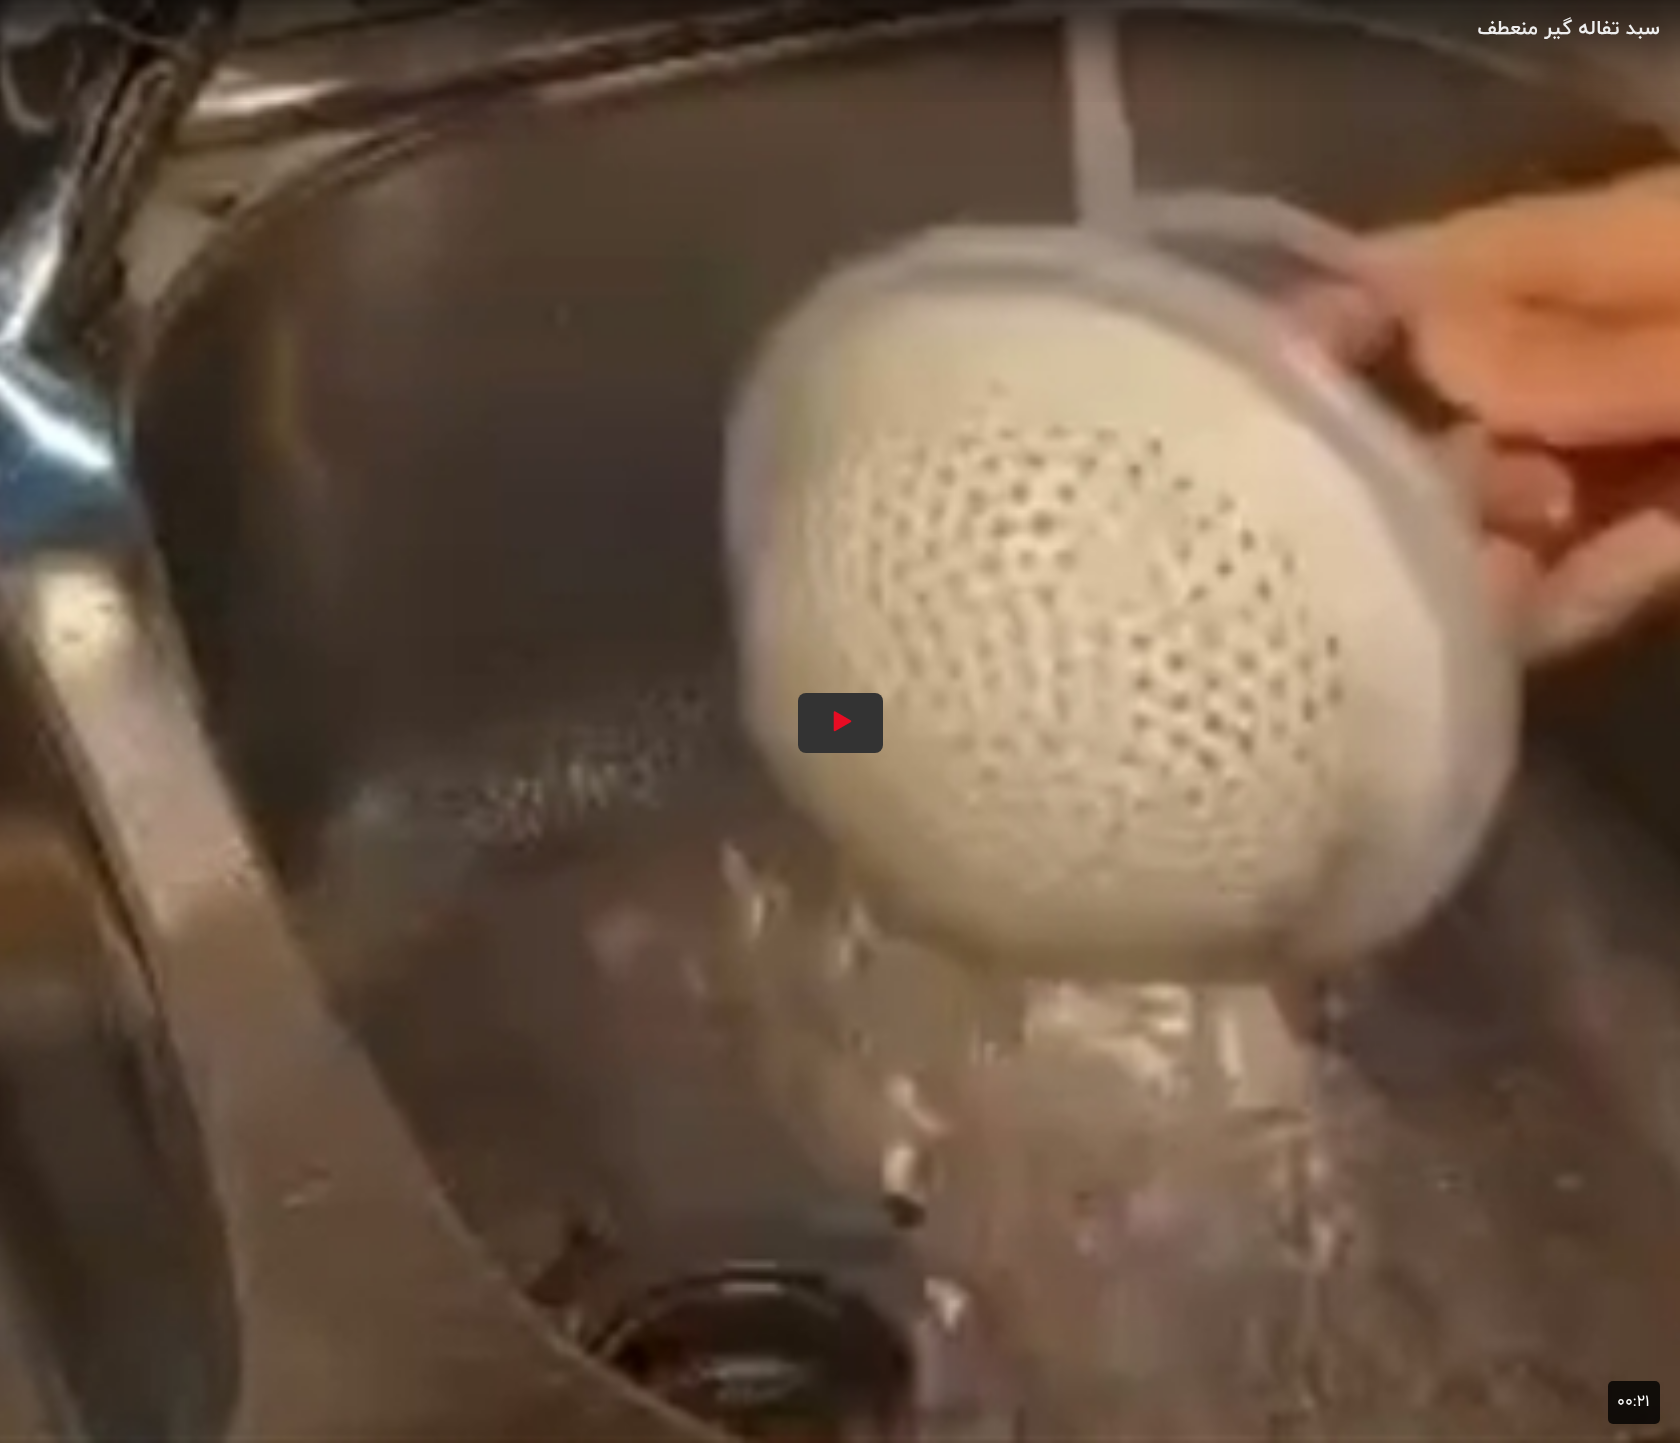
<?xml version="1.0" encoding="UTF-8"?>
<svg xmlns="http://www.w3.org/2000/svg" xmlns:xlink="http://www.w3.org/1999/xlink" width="1680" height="1443">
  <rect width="100%" height="100%" fill="#ffffff" />
  <image x="0" y="0" width="1680" height="1443" xlink:href="image1.png" />
  <image x="0" y="0" width="1680" height="102" xlink:href="image2.png" />
  <rect x="798" y="693" width="85" height="60" rx="8" fill="#333333" />
  <image x="833" y="711" width="19" height="21" xlink:href="image3.png" />
  <rect x="1608" y="1381" width="52" height="43" rx="5" fill="#000000" fill-opacity="0.8" />
  <text x="1660" y="34" style="font-family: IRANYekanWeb; font-size: 20px; font-weight: bold; direction: rtl; fill: #eeeeee">سبد تفاله گیر منعطف</text>
  <text x="1617" y="1406" style="font-family: IRANYekanWeb; font-size: 16px; fill: #ffffff">۰۰:۲۱</text>
</svg>
